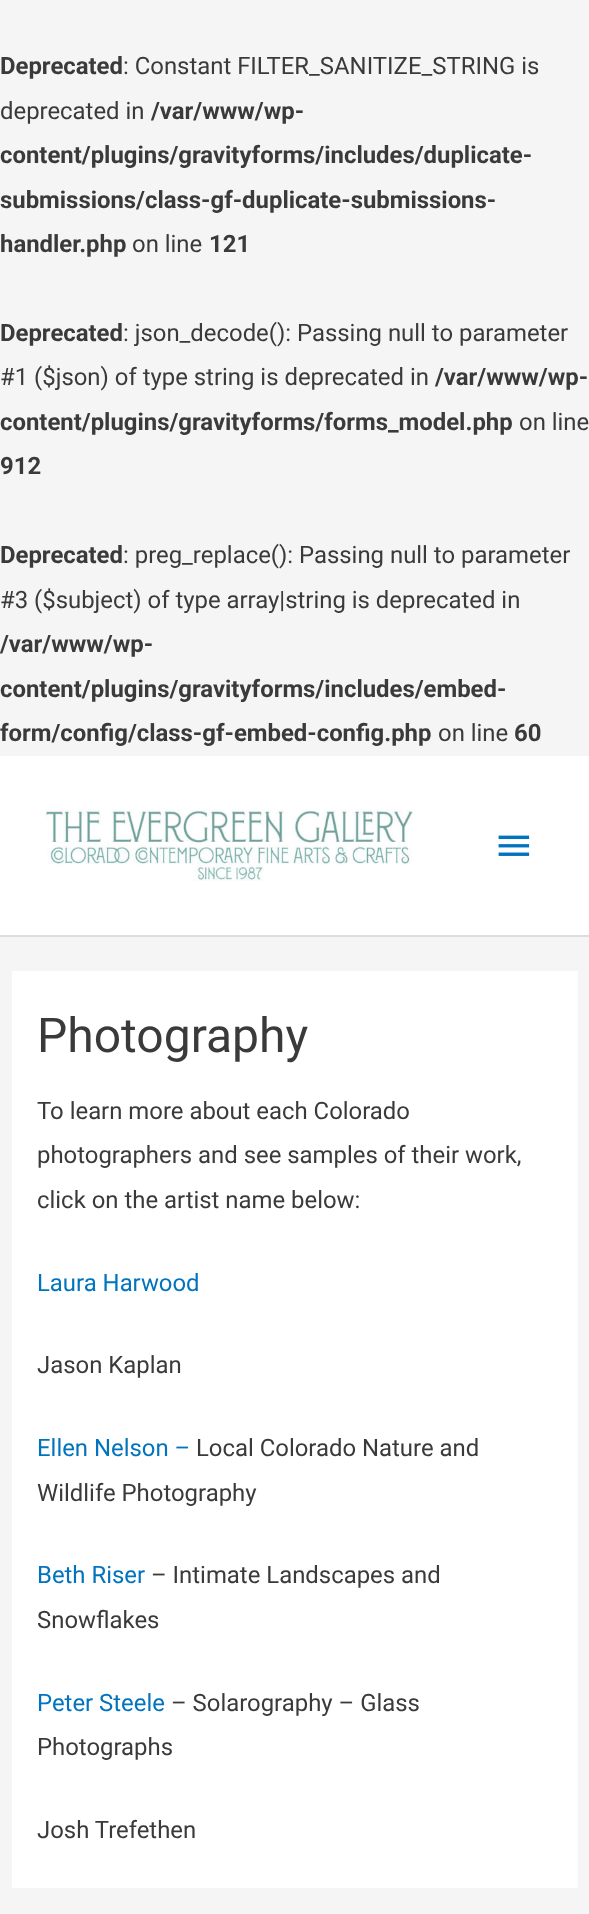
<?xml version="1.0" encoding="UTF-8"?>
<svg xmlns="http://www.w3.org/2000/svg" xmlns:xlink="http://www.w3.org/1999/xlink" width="589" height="1914">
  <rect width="100%" height="100%" fill="#f5f5f5" />
  <rect y="756" width="589" height="179" fill="#ffffff" />
  <rect y="935" width="589" height="2" fill="#dddddd" />
  <image x="46" y="809" width="367" height="72" xlink:href="image1.png" />
  <image x="498" y="835" width="32" height="21" xlink:href="image2.png" />
  <rect x="12" y="971" width="566" height="917" fill="#ffffff" />
  <text x="0" y="74" style="font-family: Roboto; font-size: 23.9px; font-weight: bold; fill: #3a3a3a">Deprecated</text>
  <text x="123" y="74" style="font-family: Roboto; font-size: 23.9px; fill: #3a3a3a">: Constant FILTER_SANITIZE_STRING is</text>
  <text x="0" y="119" style="font-family: Roboto; font-size: 23.9px; fill: #3a3a3a">deprecated in</text>
  <text x="151" y="119" style="font-family: Roboto; font-size: 23.9px; font-weight: bold; fill: #3a3a3a">/var/www/wp-</text>
  <text x="0" y="163" style="font-family: Roboto; font-size: 23.9px; font-weight: bold; fill: #3a3a3a">content/plugins/gravityforms/includes/duplicate-</text>
  <text x="0" y="208" style="font-family: Roboto; font-size: 23.9px; font-weight: bold; fill: #3a3a3a">submissions/class-gf-duplicate-submissions-</text>
  <text x="0" y="252" style="font-family: Roboto; font-size: 23.9px; font-weight: bold; fill: #3a3a3a">handler.php</text>
  <text x="132" y="252" style="font-family: Roboto; font-size: 23.9px; fill: #3a3a3a">on line</text>
  <text x="209" y="252" style="font-family: Roboto; font-size: 23.9px; font-weight: bold; fill: #3a3a3a">121</text>
  <text x="0" y="341" style="font-family: Roboto; font-size: 23.9px; font-weight: bold; fill: #3a3a3a">Deprecated</text>
  <text x="123" y="341" style="font-family: Roboto; font-size: 23.9px; fill: #3a3a3a">: json_decode(): Passing null to parameter</text>
  <text x="0" y="385" style="font-family: Roboto; font-size: 23.9px; fill: #3a3a3a">#1 ($json) of type string is deprecated in</text>
  <text x="435" y="385" style="font-family: Roboto; font-size: 23.9px; font-weight: bold; fill: #3a3a3a">/var/www/wp-</text>
  <text x="0" y="430" style="font-family: Roboto; font-size: 23.9px; font-weight: bold; fill: #3a3a3a">content/plugins/gravityforms/forms_model.php</text>
  <text x="519" y="430" style="font-family: Roboto; font-size: 23.9px; fill: #3a3a3a">on line</text>
  <text x="0" y="474" style="font-family: Roboto; font-size: 23.9px; font-weight: bold; fill: #3a3a3a">912</text>
  <text x="0" y="563" style="font-family: Roboto; font-size: 23.9px; font-weight: bold; fill: #3a3a3a">Deprecated</text>
  <text x="123" y="563" style="font-family: Roboto; font-size: 23.9px; fill: #3a3a3a">: preg_replace(): Passing null to parameter</text>
  <text x="0" y="608" style="font-family: Roboto; font-size: 23.9px; fill: #3a3a3a">#3 ($subject) of type array|string is deprecated in</text>
  <text x="0" y="652" style="font-family: Roboto; font-size: 23.9px; font-weight: bold; fill: #3a3a3a">/var/www/wp-</text>
  <text x="0" y="697" style="font-family: Roboto; font-size: 23.9px; font-weight: bold; fill: #3a3a3a">content/plugins/gravityforms/includes/embed-</text>
  <text x="0" y="741" style="font-family: Roboto; font-size: 23.9px; font-weight: bold; fill: #3a3a3a">form/config/class-gf-embed-config.php</text>
  <text x="438" y="741" style="font-family: Roboto; font-size: 23.9px; fill: #3a3a3a">on line</text>
  <text x="514" y="741" style="font-family: Roboto; font-size: 23.9px; font-weight: bold; fill: #3a3a3a">60</text>
  <text x="37" y="1052" style="font-family: Roboto; font-size: 48px; fill: #3a3a3a">Photography</text>
  <text x="37" y="1119" style="font-family: Roboto; font-size: 23.9px; fill: #3a3a3a">To learn more about each Colorado</text>
  <text x="37" y="1163" style="font-family: Roboto; font-size: 23.9px; fill: #3a3a3a">photographers and see samples of their work,</text>
  <text x="37" y="1208" style="font-family: Roboto; font-size: 23.9px; fill: #3a3a3a">click on the artist name below:</text>
  <text x="37" y="1291" style="font-family: Roboto; font-size: 23.9px; fill: #0274be">Laura Harwood</text>
  <text x="37" y="1373" style="font-family: Roboto; font-size: 23.9px; fill: #3a3a3a">Jason Kaplan</text>
  <text x="37" y="1456" style="font-family: Roboto; font-size: 23.9px; fill: #0274be">Ellen Nelson –</text>
  <text x="196" y="1456" style="font-family: Roboto; font-size: 23.9px; fill: #3a3a3a">Local Colorado Nature and</text>
  <text x="37" y="1501" style="font-family: Roboto; font-size: 23.9px; fill: #3a3a3a">Wildlife Photography</text>
  <text x="37" y="1583" style="font-family: Roboto; font-size: 23.9px; fill: #0274be">Beth Riser</text>
  <text x="151" y="1583" style="font-family: Roboto; font-size: 23.9px; fill: #3a3a3a">– Intimate Landscapes and</text>
  <text x="37" y="1628" style="font-family: Roboto; font-size: 23.9px; fill: #3a3a3a">Snowflakes</text>
  <text x="37" y="1711" style="font-family: Roboto; font-size: 23.9px; fill: #0274be">Peter Steele</text>
  <text x="171" y="1711" style="font-family: Roboto; font-size: 23.9px; fill: #3a3a3a">– Solarography – Glass</text>
  <text x="37" y="1755" style="font-family: Roboto; font-size: 23.9px; fill: #3a3a3a">Photographs</text>
  <text x="37" y="1838" style="font-family: Roboto; font-size: 23.9px; fill: #3a3a3a">Josh Trefethen</text>
</svg>
